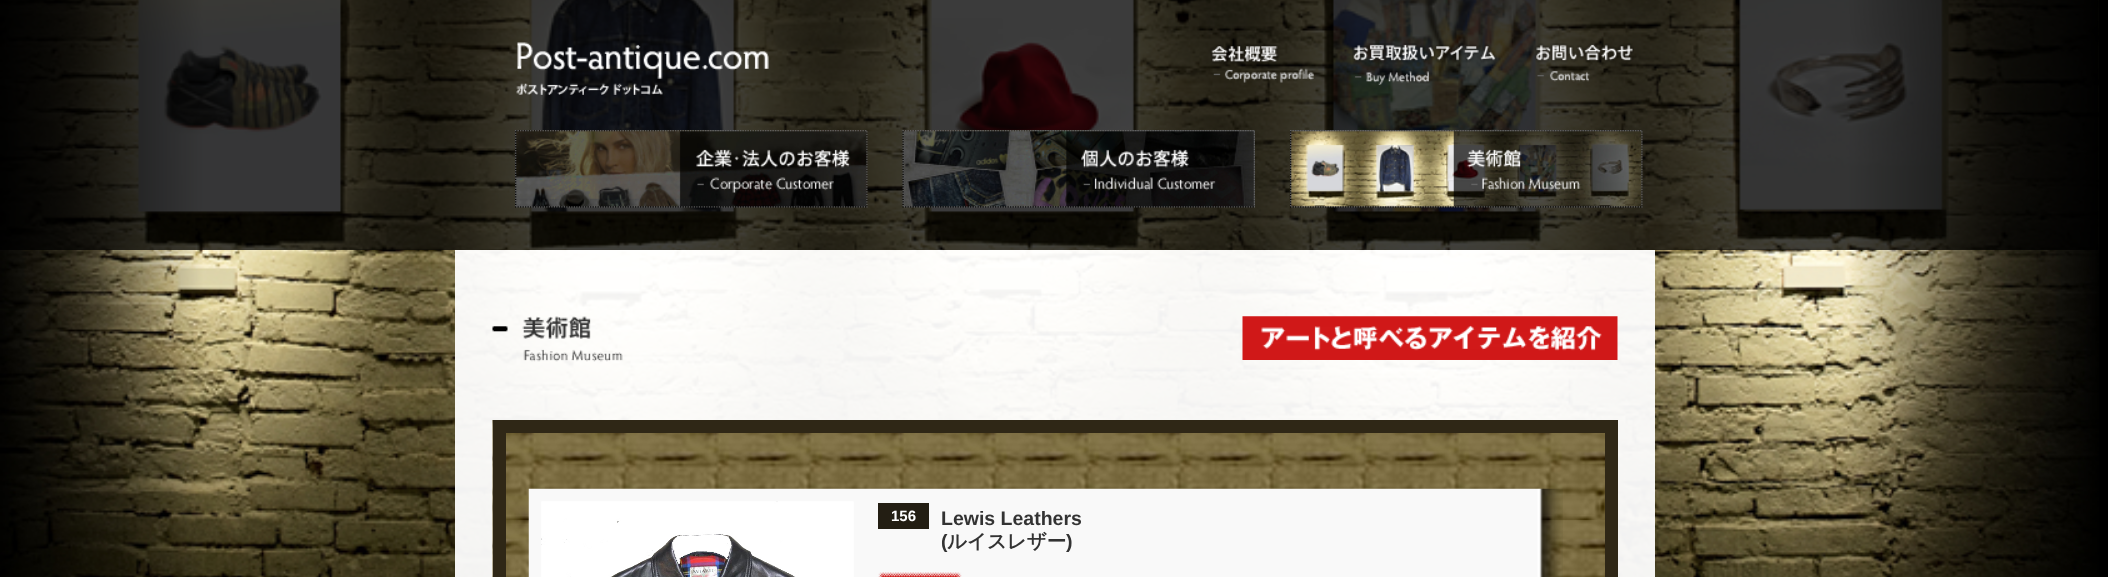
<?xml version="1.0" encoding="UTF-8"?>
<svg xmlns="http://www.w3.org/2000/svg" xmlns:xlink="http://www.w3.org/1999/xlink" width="2108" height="577">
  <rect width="100%" height="100%" fill="#000000" />
  <image x="0" y="0" width="2099" height="577" xlink:href="image1.png" />
  <rect width="2098" height="250" fill="#000000" fill-opacity="0.75" />
  <image x="516" y="42" width="253" height="53" xlink:href="image2.png" />
  <image x="1210" y="44" width="104" height="39" xlink:href="image3.png" />
  <image x="1352" y="43" width="145" height="42" xlink:href="image4.png" />
  <image x="1534" y="43" width="100" height="39" xlink:href="image5.png" />
  <image x="515" y="130" width="353" height="78" xlink:href="image6.png" />
  <image x="902" y="130" width="353" height="78" xlink:href="image7.png" />
  <image x="1290" y="130" width="353" height="78" xlink:href="image8.png" />
  <rect x="455" y="250" width="1200" height="327" fill="#ffffff" fill-opacity="0.95" />
  <image x="492" y="316" width="131" height="46" xlink:href="image9.png" />
  <image x="1242" y="316" width="376" height="44" xlink:href="image10.png" />
  <image x="492" y="420" width="1113" height="157" xlink:href="image11.png" />
  <rect x="499.5" y="426.5" width="1112" height="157" fill="none" stroke="#2f2716" stroke-width="13" />
  <image x="528" y="488" width="1035" height="89" xlink:href="image12.png" />
  <image x="541" y="501" width="313" height="76" xlink:href="image13.png" />
  <rect x="878" y="503" width="51" height="26" fill="#231e13" />
  <image x="878" y="572" width="84" height="5" xlink:href="image14.png" />
  <text x="891" y="521" style="font-family: Liberation Sans; font-size: 15px; font-weight: bold; fill: #ffffff">156</text>
  <text x="941" y="525" style="font-family: Liberation Sans; font-size: 19.5px; font-weight: bold; fill: #333333">Lewis Leathers</text>
  <text x="941" y="548" style="font-family: Liberation Sans; font-size: 19.5px; font-weight: bold; fill: #333333">(</text>
  <text x="947" y="548" style="font-family: WenQuanYi Zen Hei; font-size: 19.5px; font-weight: bold; fill: #333333">ルイスレザー</text>
  <text x="1066" y="548" style="font-family: Liberation Sans; font-size: 19.5px; font-weight: bold; fill: #333333">)</text>
</svg>
